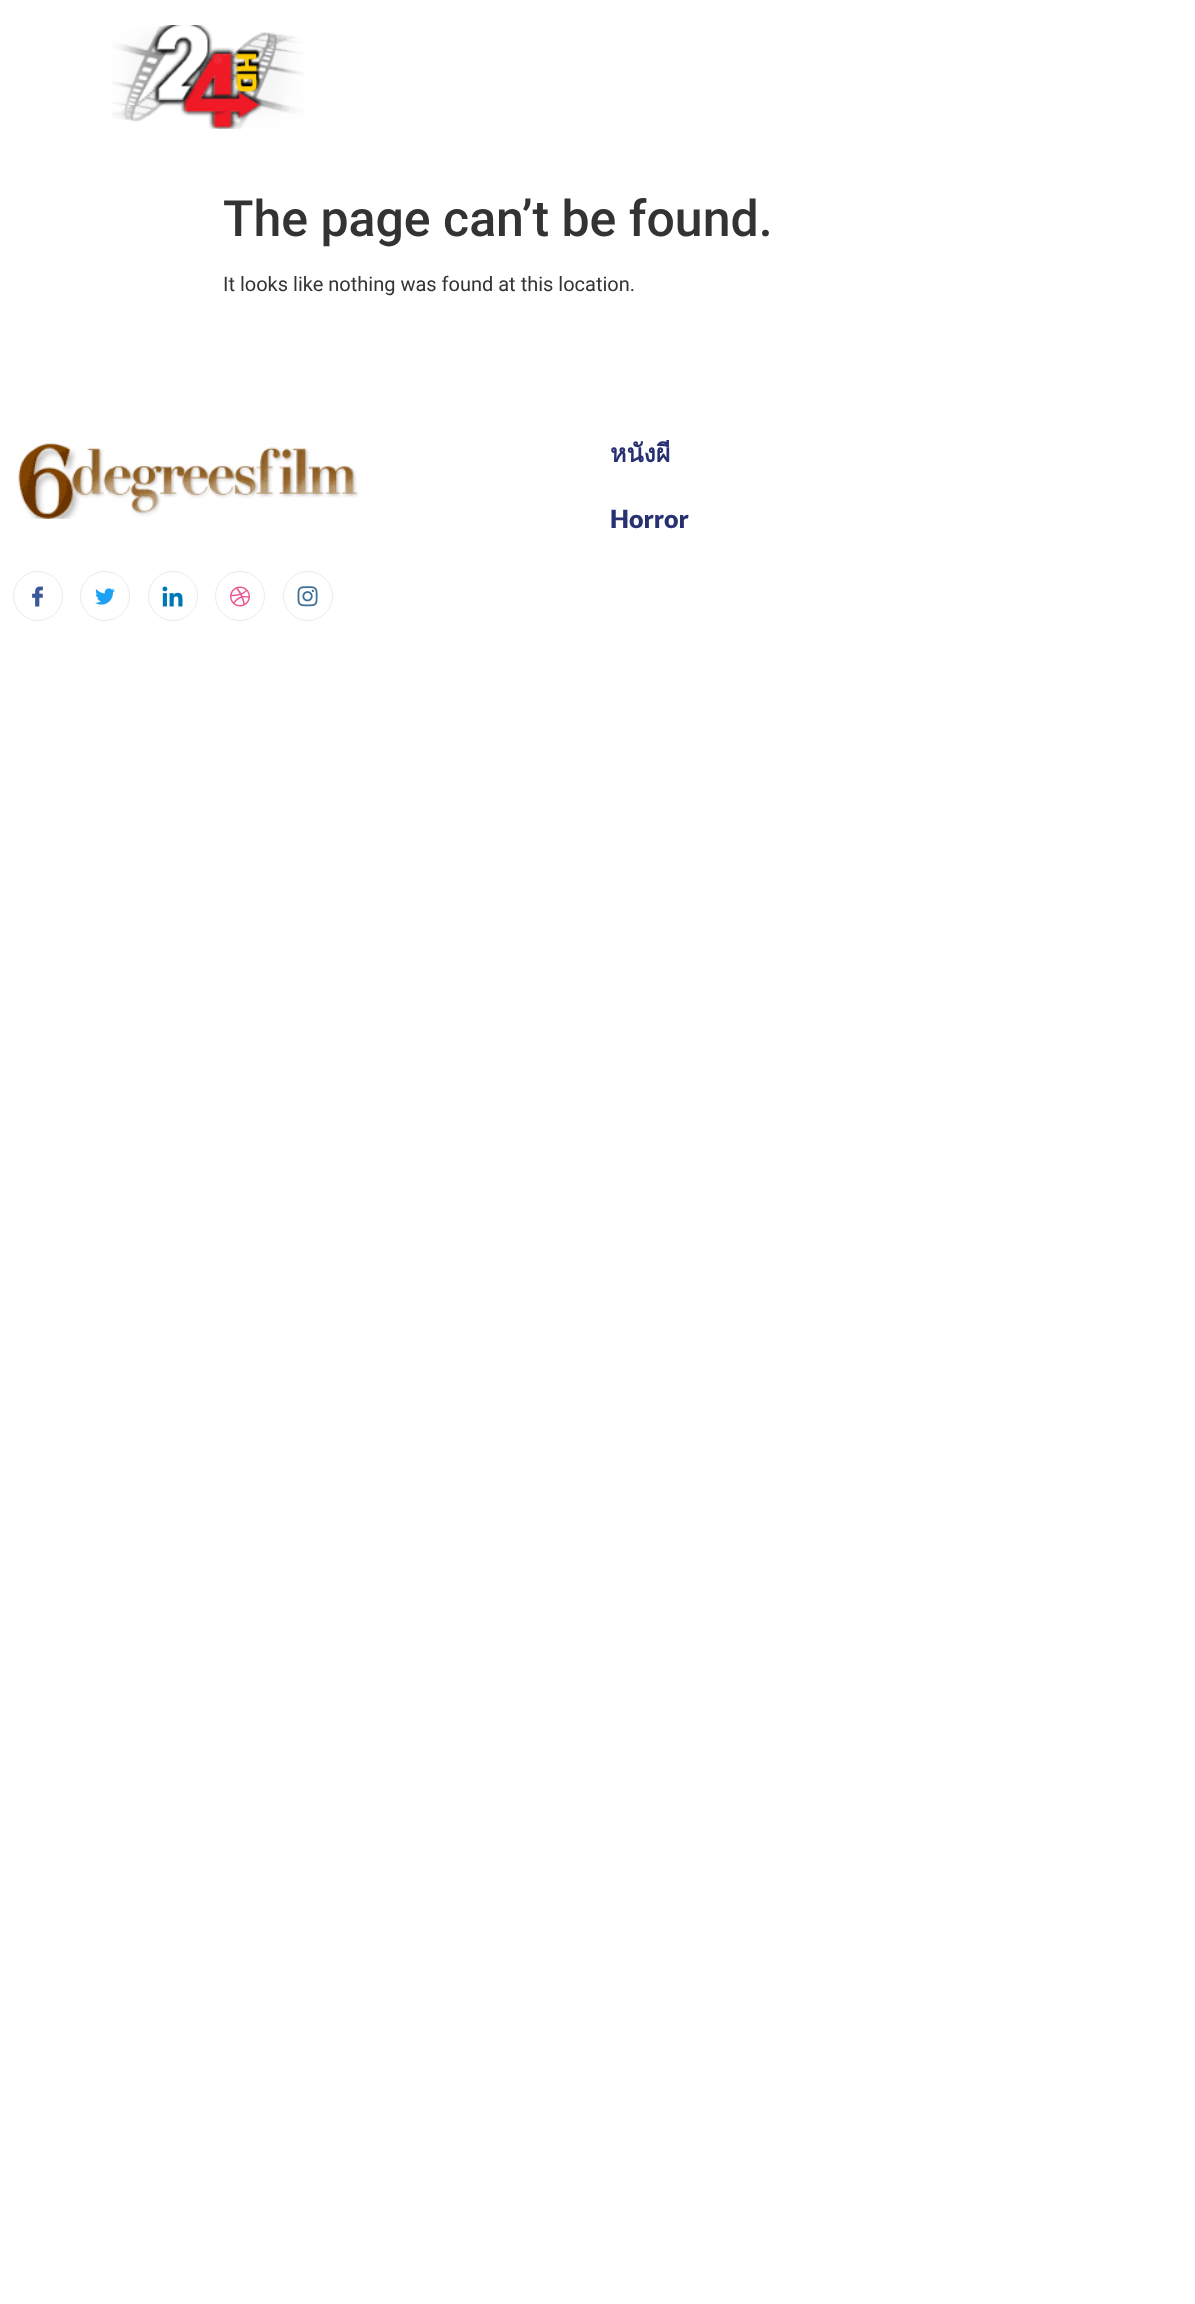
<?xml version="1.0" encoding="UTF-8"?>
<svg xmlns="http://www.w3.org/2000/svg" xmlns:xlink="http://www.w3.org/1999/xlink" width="1195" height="2304">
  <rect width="100%" height="100%" fill="#ffffff" />
  <image x="112" y="25" width="192" height="104" xlink:href="image1.png" />
  <image x="18" y="443" width="341" height="76" xlink:href="image2.png" />
  <circle cx="38" cy="596" r="24.5" fill="none" stroke="#eaebf1" />
  <image x="32" y="586" width="11" height="21" xlink:href="image3.png" />
  <circle cx="105" cy="596" r="24.5" fill="none" stroke="#eaebf1" />
  <image x="95" y="588" width="20" height="17" xlink:href="image4.png" />
  <circle cx="173" cy="596" r="24.5" fill="none" stroke="#eaebf1" />
  <image x="162" y="586" width="21" height="21" xlink:href="image5.png" />
  <circle cx="240" cy="596" r="24.5" fill="none" stroke="#eaebf1" />
  <image x="230" y="586" width="20" height="21" xlink:href="image6.png" />
  <circle cx="308" cy="596" r="24.5" fill="none" stroke="#eaebf1" />
  <image x="297" y="586" width="21" height="21" xlink:href="image7.png" />
  <text x="223" y="236" style="font-family: Roboto; font-size: 50px; font-weight: 500; fill: #333333">The page can’t be found.</text>
  <text x="223" y="291" style="font-family: Roboto; font-size: 20px; fill: #333333">It looks like nothing was found at this location.</text>
  <text x="610" y="462" style="font-family: Loma; font-size: 25px; font-weight: bold; fill: #273171">หนังผี</text>
  <text x="610" y="528" style="font-family: Lato; font-size: 25px; font-weight: 900; fill: #273171">Horror</text>
</svg>
